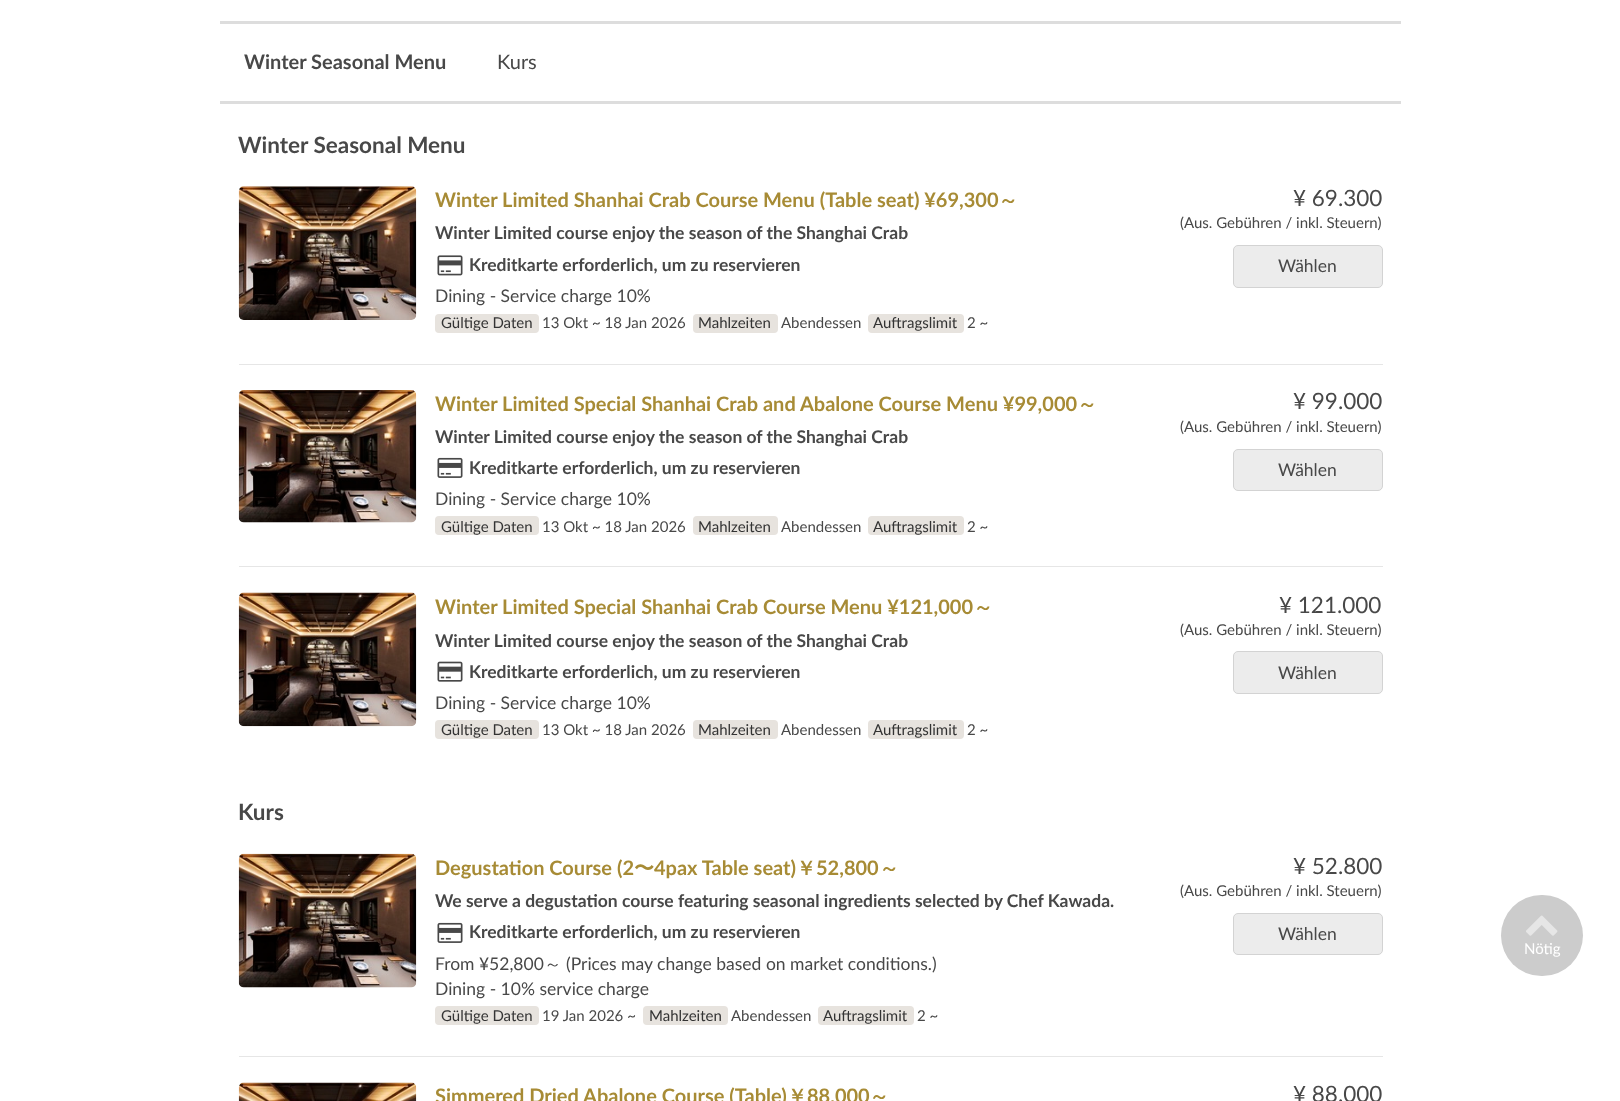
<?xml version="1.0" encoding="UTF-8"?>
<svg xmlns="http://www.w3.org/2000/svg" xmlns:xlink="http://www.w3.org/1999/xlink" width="1620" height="1101">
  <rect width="100%" height="100%" fill="#ffffff" />
  <rect x="220" y="21" width="1181" height="3" fill="#dddddd" />
  <rect x="220" y="101" width="1181" height="3" fill="#dddddd" />
  <rect x="239" y="364" width="1144" height="1" fill="#e6e6e6" />
  <image x="238" y="186" width="179" height="134" xlink:href="image1.png" />
  <image x="437" y="255" width="26" height="21" xlink:href="image2.png" />
  <rect x="435" y="314" width="104" height="19" rx="4" fill="#e7e3de" />
  <rect x="693" y="314" width="85" height="19" rx="4" fill="#e7e3de" />
  <rect x="868" y="314" width="96" height="19" rx="4" fill="#e7e3de" />
  <rect x="1233.5" y="245.5" width="149" height="42" rx="4.5" fill="#ececec" stroke="#d3d3d3" />
  <rect x="239" y="566" width="1144" height="1" fill="#e6e6e6" />
  <image x="238" y="390" width="179" height="133" xlink:href="image3.png" />
  <image x="437" y="457" width="26" height="21" xlink:href="image4.png" />
  <rect x="435" y="516" width="104" height="19" rx="4" fill="#e7e3de" />
  <rect x="693" y="516" width="85" height="19" rx="4" fill="#e7e3de" />
  <rect x="868" y="516" width="96" height="19" rx="4" fill="#e7e3de" />
  <rect x="1233.5" y="449.5" width="149" height="41" rx="4.5" fill="#ececec" stroke="#d3d3d3" />
  <image x="238" y="592" width="179" height="135" xlink:href="image5.png" />
  <image x="437" y="661" width="26" height="21" xlink:href="image6.png" />
  <rect x="435" y="720" width="104" height="19" rx="4" fill="#e7e3de" />
  <rect x="693" y="720" width="85" height="19" rx="4" fill="#e7e3de" />
  <rect x="868" y="720" width="96" height="19" rx="4" fill="#e7e3de" />
  <rect x="1233.5" y="651.5" width="149" height="42" rx="4.5" fill="#ececec" stroke="#d3d3d3" />
  <rect x="239" y="1056" width="1144" height="1" fill="#e6e6e6" />
  <image x="238" y="853" width="179" height="135" xlink:href="image7.png" />
  <image x="437" y="922" width="26" height="21" xlink:href="image4.png" />
  <rect x="435" y="1006" width="104" height="19" rx="4" fill="#e7e3de" />
  <rect x="643" y="1006" width="85" height="19" rx="4" fill="#e7e3de" />
  <rect x="818" y="1006" width="96" height="19" rx="4" fill="#e7e3de" />
  <rect x="1233.5" y="913.5" width="149" height="41" rx="4.5" fill="#ececec" stroke="#d3d3d3" />
  <image x="238" y="1082" width="179" height="19" xlink:href="image8.png" />
  <rect x="1501" y="895" width="82" height="81" rx="40.5" fill="#cccccc" />
  <image x="1526" y="915" width="32" height="21" xlink:href="image9.png" />
  <text x="244" y="69" style="font-family: Lato; font-size: 20px; font-weight: bold; fill: #484848">Winter Seasonal Menu</text>
  <text x="497" y="69" style="font-family: Lato; font-size: 20px; fill: #484848">Kurs</text>
  <text x="238" y="153" style="font-family: Lato; font-size: 22.5px; font-weight: bold; fill: #484848">Winter Seasonal Menu</text>
  <text x="435" y="207" style="font-family: Lato; font-size: 20px; font-weight: bold; fill: #a78b35">Winter Limited Shanhai Crab Course Menu (Table seat) ¥69,300</text>
  <text x="998" y="207" style="font-family: WenQuanYi Zen Hei; font-size: 20px; font-weight: bold; fill: #a78b35">～</text>
  <text x="435" y="239" style="font-family: Lato; font-size: 17.5px; font-weight: bold; fill: #484848">Winter Limited course enjoy the season of the Shanghai Crab</text>
  <text x="469" y="271" style="font-family: Lato; font-size: 17.5px; font-weight: bold; fill: #484848">Kreditkarte erforderlich, um zu reservieren</text>
  <text x="435" y="302" style="font-family: Lato; font-size: 17.5px; fill: #484848">Dining - Service charge 10%</text>
  <text x="441" y="328" style="font-family: Lato; font-size: 15px; fill: #333333">Gültige Daten</text>
  <text x="542" y="328" style="font-family: Lato; font-size: 15px; fill: #484848">13 Okt ~ 18 Jan 2026</text>
  <text x="698" y="328" style="font-family: Lato; font-size: 15px; fill: #333333">Mahlzeiten</text>
  <text x="781" y="328" style="font-family: Lato; font-size: 15px; fill: #484848">Abendessen</text>
  <text x="873" y="328" style="font-family: Lato; font-size: 15px; fill: #333333">Auftragslimit</text>
  <text x="967" y="328" style="font-family: Lato; font-size: 15px; fill: #484848">2 ~</text>
  <text x="1293" y="206" style="font-family: Lato; font-size: 22.5px; fill: #484848">¥ 69.300</text>
  <text x="1180" y="228" style="font-family: Lato; font-size: 15px; fill: #484848">(Aus. Gebühren / inkl. Steuern)</text>
  <text x="1278" y="272" style="font-family: Lato; font-size: 17.5px; fill: #484848">Wählen</text>
  <text x="435" y="411" style="font-family: Lato; font-size: 20px; font-weight: bold; fill: #a78b35">Winter Limited Special Shanhai Crab and Abalone Course Menu ¥99,000</text>
  <text x="1077" y="411" style="font-family: WenQuanYi Zen Hei; font-size: 20px; font-weight: bold; fill: #a78b35">～</text>
  <text x="435" y="443" style="font-family: Lato; font-size: 17.5px; font-weight: bold; fill: #484848">Winter Limited course enjoy the season of the Shanghai Crab</text>
  <text x="469" y="474" style="font-family: Lato; font-size: 17.5px; font-weight: bold; fill: #484848">Kreditkarte erforderlich, um zu reservieren</text>
  <text x="435" y="505" style="font-family: Lato; font-size: 17.5px; fill: #484848">Dining - Service charge 10%</text>
  <text x="441" y="532" style="font-family: Lato; font-size: 15px; fill: #333333">Gültige Daten</text>
  <text x="542" y="532" style="font-family: Lato; font-size: 15px; fill: #484848">13 Okt ~ 18 Jan 2026</text>
  <text x="698" y="532" style="font-family: Lato; font-size: 15px; fill: #333333">Mahlzeiten</text>
  <text x="781" y="532" style="font-family: Lato; font-size: 15px; fill: #484848">Abendessen</text>
  <text x="873" y="532" style="font-family: Lato; font-size: 15px; fill: #333333">Auftragslimit</text>
  <text x="967" y="532" style="font-family: Lato; font-size: 15px; fill: #484848">2 ~</text>
  <text x="1293" y="409" style="font-family: Lato; font-size: 22.5px; fill: #484848">¥ 99.000</text>
  <text x="1180" y="432" style="font-family: Lato; font-size: 15px; fill: #484848">(Aus. Gebühren / inkl. Steuern)</text>
  <text x="1278" y="476" style="font-family: Lato; font-size: 17.5px; fill: #484848">Wählen</text>
  <text x="435" y="614" style="font-family: Lato; font-size: 20px; font-weight: bold; fill: #a78b35">Winter Limited Special Shanhai Crab Course Menu ¥121,000</text>
  <text x="973" y="614" style="font-family: WenQuanYi Zen Hei; font-size: 20px; font-weight: bold; fill: #a78b35">～</text>
  <text x="435" y="647" style="font-family: Lato; font-size: 17.5px; font-weight: bold; fill: #484848">Winter Limited course enjoy the season of the Shanghai Crab</text>
  <text x="469" y="678" style="font-family: Lato; font-size: 17.5px; font-weight: bold; fill: #484848">Kreditkarte erforderlich, um zu reservieren</text>
  <text x="435" y="709" style="font-family: Lato; font-size: 17.5px; fill: #484848">Dining - Service charge 10%</text>
  <text x="441" y="735" style="font-family: Lato; font-size: 15px; fill: #333333">Gültige Daten</text>
  <text x="542" y="735" style="font-family: Lato; font-size: 15px; fill: #484848">13 Okt ~ 18 Jan 2026</text>
  <text x="698" y="735" style="font-family: Lato; font-size: 15px; fill: #333333">Mahlzeiten</text>
  <text x="781" y="735" style="font-family: Lato; font-size: 15px; fill: #484848">Abendessen</text>
  <text x="873" y="735" style="font-family: Lato; font-size: 15px; fill: #333333">Auftragslimit</text>
  <text x="967" y="735" style="font-family: Lato; font-size: 15px; fill: #484848">2 ~</text>
  <text x="1279" y="613" style="font-family: Lato; font-size: 22.5px; fill: #484848">¥ 121.000</text>
  <text x="1180" y="635" style="font-family: Lato; font-size: 15px; fill: #484848">(Aus. Gebühren / inkl. Steuern)</text>
  <text x="1278" y="679" style="font-family: Lato; font-size: 17.5px; fill: #484848">Wählen</text>
  <text x="238" y="820" style="font-family: Lato; font-size: 22.5px; font-weight: bold; fill: #484848">Kurs</text>
  <text x="435" y="875" style="font-family: Lato; font-size: 20px; font-weight: bold; fill: #a78b35">Degustation Course (2</text>
  <text x="634" y="875" style="font-family: WenQuanYi Zen Hei; font-size: 20px; font-weight: bold; fill: #a78b35">〜</text>
  <text x="654" y="875" style="font-family: Lato; font-size: 20px; font-weight: bold; fill: #a78b35">4pax Table seat)</text>
  <text x="796" y="875" style="font-family: WenQuanYi Zen Hei; font-size: 20px; font-weight: bold; fill: #a78b35">￥</text>
  <text x="816" y="875" style="font-family: Lato; font-size: 20px; font-weight: bold; fill: #a78b35">52,800</text>
  <text x="879" y="875" style="font-family: WenQuanYi Zen Hei; font-size: 20px; font-weight: bold; fill: #a78b35">～</text>
  <text x="435" y="907" style="font-family: Lato; font-size: 17.5px; font-weight: bold; fill: #484848">We serve a degustation course featuring seasonal ingredients selected by Chef Kawada.</text>
  <text x="469" y="938" style="font-family: Lato; font-size: 17.5px; font-weight: bold; fill: #484848">Kreditkarte erforderlich, um zu reservieren</text>
  <text x="435" y="970" style="font-family: Lato; font-size: 17.5px; fill: #484848">From ¥52,800</text>
  <text x="544" y="970" style="font-family: WenQuanYi Zen Hei; font-size: 17.5px; font-weight: 500; fill: #484848">～</text>
  <text x="566" y="970" style="font-family: Lato; font-size: 17.5px; fill: #484848">(Prices may change based on market conditions.)</text>
  <text x="435" y="995" style="font-family: Lato; font-size: 17.5px; fill: #484848">Dining - 10% service charge</text>
  <text x="441" y="1021" style="font-family: Lato; font-size: 15px; fill: #333333">Gültige Daten</text>
  <text x="542" y="1021" style="font-family: Lato; font-size: 15px; fill: #484848">19 Jan 2026 ~</text>
  <text x="649" y="1021" style="font-family: Lato; font-size: 15px; fill: #333333">Mahlzeiten</text>
  <text x="731" y="1021" style="font-family: Lato; font-size: 15px; fill: #484848">Abendessen</text>
  <text x="823" y="1021" style="font-family: Lato; font-size: 15px; fill: #333333">Auftragslimit</text>
  <text x="917" y="1021" style="font-family: Lato; font-size: 15px; fill: #484848">2 ~</text>
  <text x="1293" y="874" style="font-family: Lato; font-size: 22.5px; fill: #484848">¥ 52.800</text>
  <text x="1180" y="896" style="font-family: Lato; font-size: 15px; fill: #484848">(Aus. Gebühren / inkl. Steuern)</text>
  <text x="1278" y="940" style="font-family: Lato; font-size: 17.5px; fill: #484848">Wählen</text>
  <text x="435" y="1103" style="font-family: Lato; font-size: 20px; font-weight: bold; fill: #a78b35">Simmered Dried Abalone Course (Table)</text>
  <text x="787" y="1103" style="font-family: WenQuanYi Zen Hei; font-size: 20px; font-weight: bold; fill: #a78b35">￥</text>
  <text x="807" y="1103" style="font-family: Lato; font-size: 20px; font-weight: bold; fill: #a78b35">88,000</text>
  <text x="869" y="1103" style="font-family: WenQuanYi Zen Hei; font-size: 20px; font-weight: bold; fill: #a78b35">～</text>
  <text x="1293" y="1102" style="font-family: Lato; font-size: 22.5px; fill: #484848">¥ 88.000</text>
  <text x="1524" y="954" style="font-family: Lato; font-size: 15px; fill: #ffffff">Nötig</text>
</svg>
